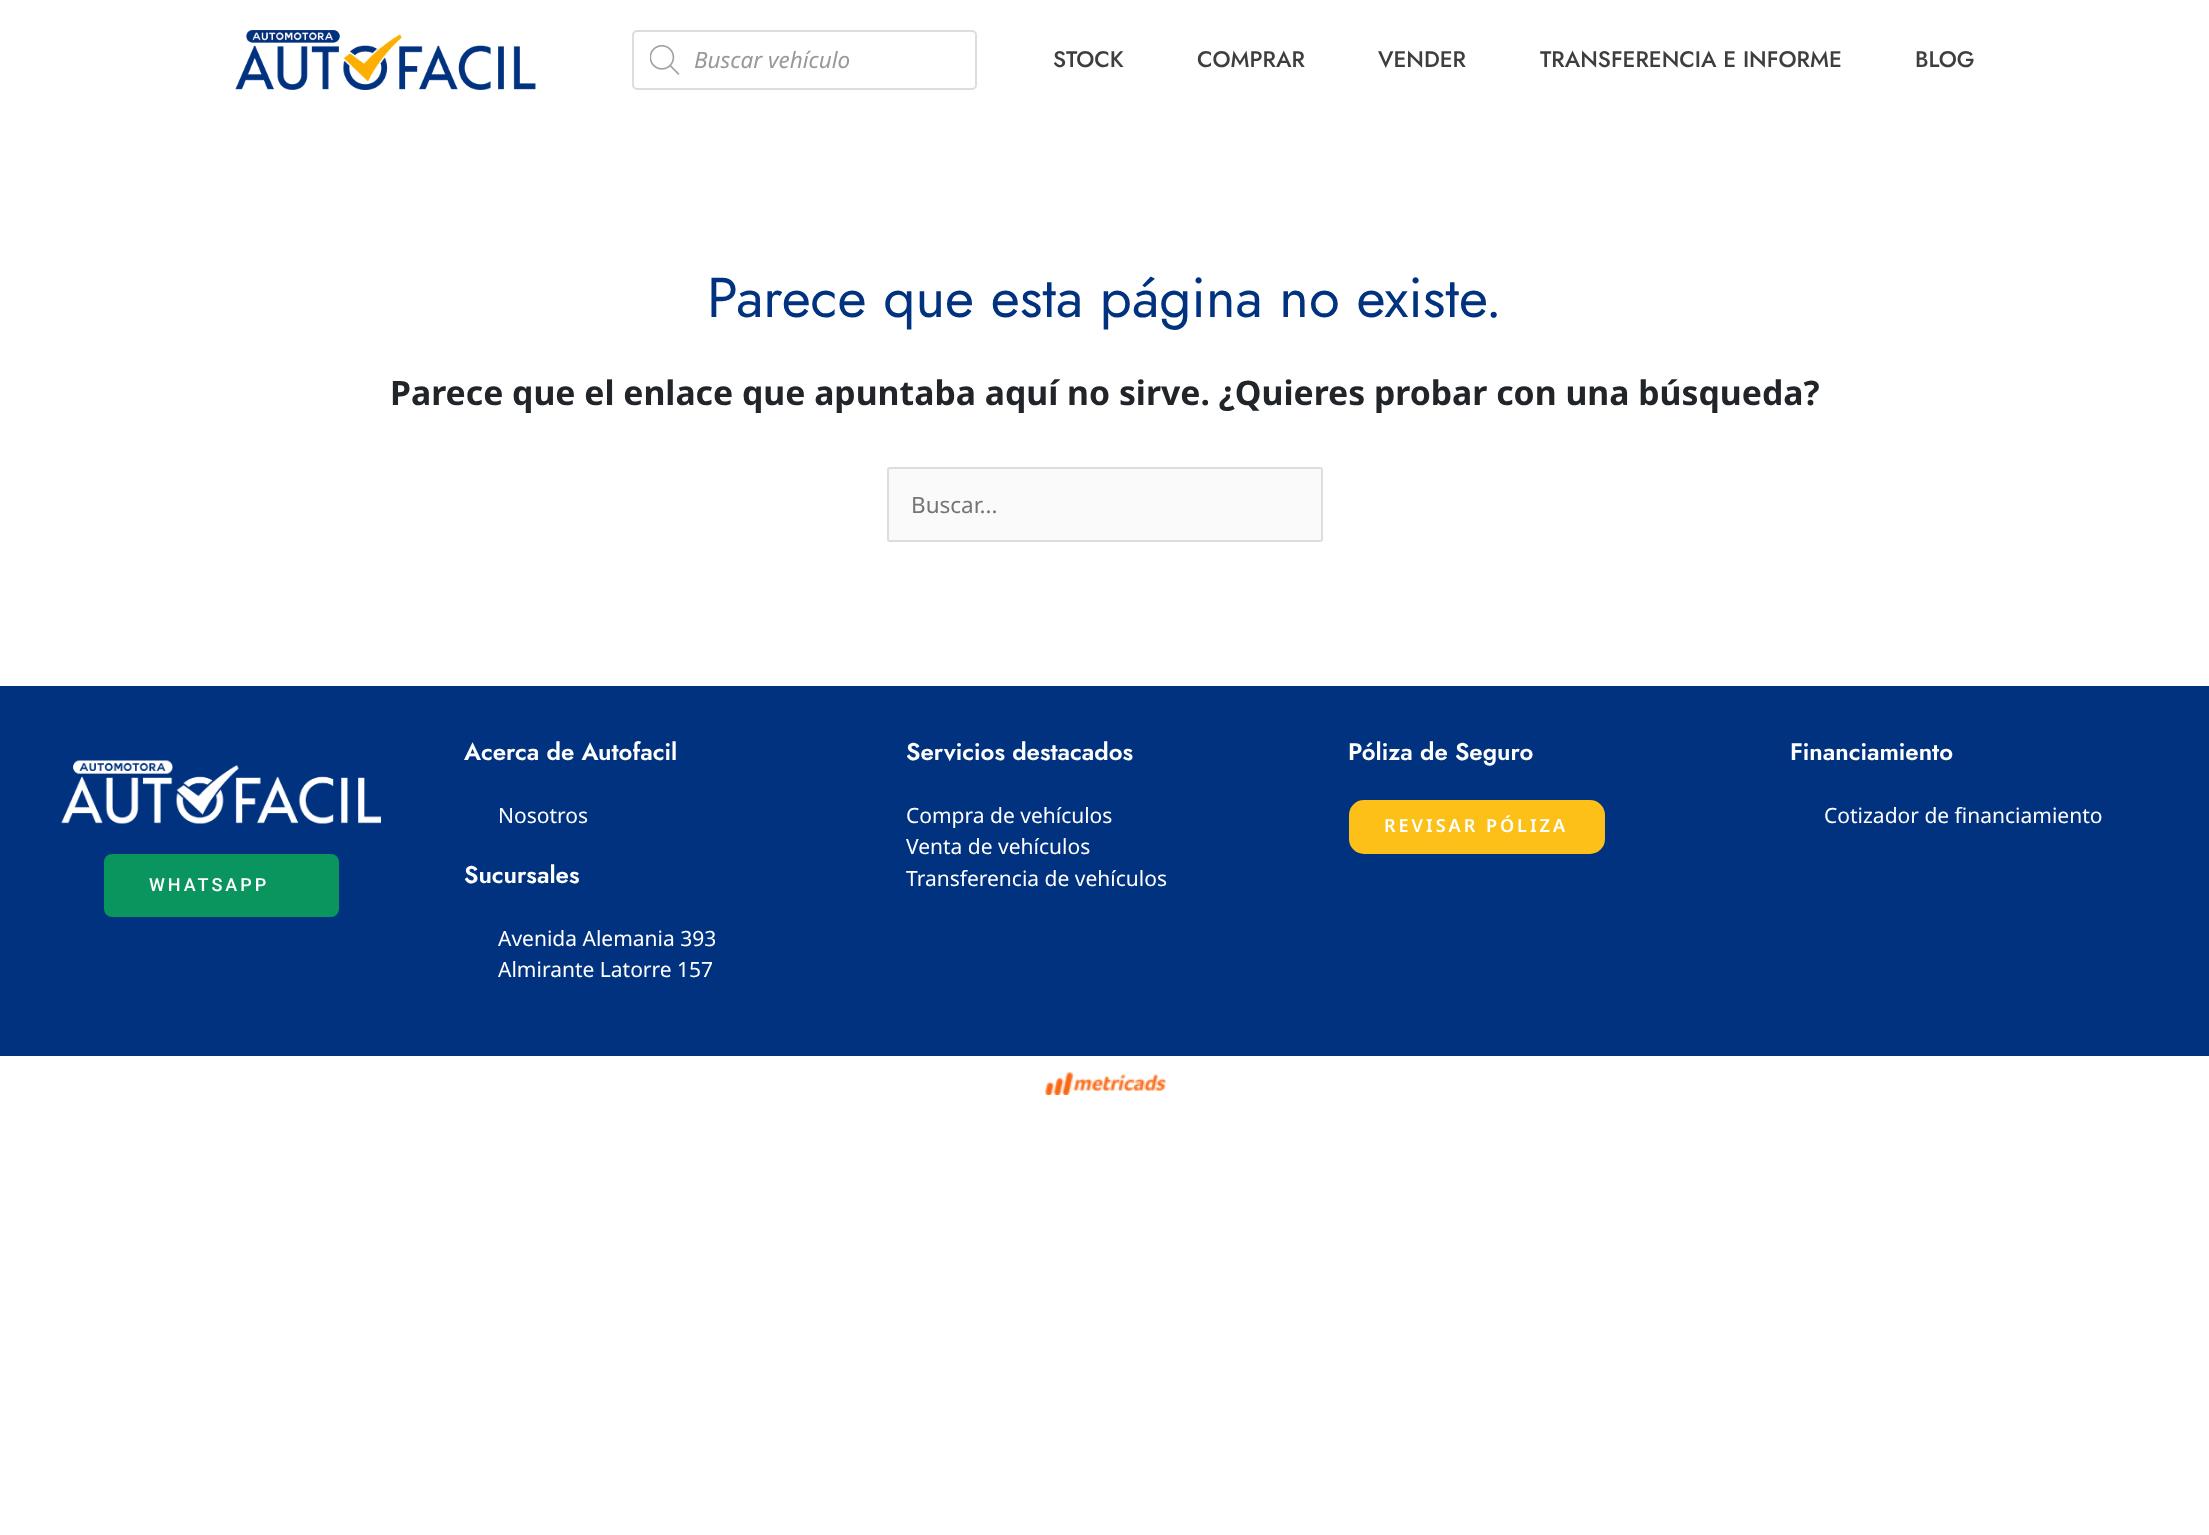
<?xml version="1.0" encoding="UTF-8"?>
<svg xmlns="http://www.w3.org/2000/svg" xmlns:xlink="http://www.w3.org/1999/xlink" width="2209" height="1535">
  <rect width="100%" height="100%" fill="#ffffff" />
  <image x="235" y="30" width="301" height="60" xlink:href="image1.png" />
  <rect x="633" y="31" width="343" height="58" rx="4" fill="none" stroke="#dddddd" stroke-width="2" />
  <image x="650" y="45" width="30" height="30" xlink:href="image2.png" />
  <rect x="888" y="468" width="434" height="73" rx="2" fill="#fafafa" stroke="#dddddd" stroke-width="2" />
  <rect y="686" width="2209" height="370" fill="#01327f" />
  <rect x="1349" y="800" width="256" height="54" rx="15" fill="#fcc018" />
  <image x="61" y="760" width="320" height="64" xlink:href="image3.png" />
  <rect x="104" y="854" width="235" height="63" rx="8" fill="#09955d" />
  <image x="1045" y="1072" width="121" height="23" xlink:href="image4.png" />
  <text x="694" y="68" style="font-family: Noto Sans; font-size: 22.5px; font-style: italic; fill: #999999">Buscar vehículo</text>
  <text x="1053" y="67" style="font-family: Jost; font-size: 22.5px; font-weight: 500; fill: #3e3e3e">STOCK</text>
  <text x="1197" y="67" style="font-family: Jost; font-size: 22.5px; font-weight: 500; fill: #3e3e3e">COMPRAR</text>
  <text x="1378" y="67" style="font-family: Jost; font-size: 22.5px; font-weight: 500; fill: #3e3e3e">VENDER</text>
  <text x="1540" y="67" style="font-family: Jost; font-size: 22.5px; font-weight: 500; fill: #3e3e3e">TRANSFERENCIA E INFORME</text>
  <text x="1915" y="67" style="font-family: Jost; font-size: 22.5px; font-weight: 500; fill: #3e3e3e">BLOG</text>
  <text x="707" y="317" style="font-family: Jost; font-size: 56.25px; fill: #00327f">Parece que esta página no existe.</text>
  <text x="390" y="405" style="font-family: Noto Sans; font-size: 33.75px; font-weight: bold; fill: #212529">Parece que el enlace que apuntaba aquí no sirve. ¿Quieres probar con una búsqueda?</text>
  <text x="911" y="513" style="font-family: Noto Sans; font-size: 22.5px; fill: #757575">Buscar...</text>
  <text x="464" y="760" style="font-family: Jost; font-size: 24px; font-weight: 600; fill: #ffffff">Acerca de Autofacil</text>
  <text x="498" y="823" style="font-family: Noto Sans; font-size: 21px; fill: #ffffff">Nosotros</text>
  <text x="464" y="883" style="font-family: Jost; font-size: 24px; font-weight: 600; fill: #ffffff">Sucursales</text>
  <text x="498" y="946" style="font-family: Noto Sans; font-size: 21px; fill: #ffffff">Avenida Alemania 393</text>
  <text x="498" y="977" style="font-family: Noto Sans; font-size: 21px; fill: #ffffff">Almirante Latorre 157</text>
  <text x="906" y="760" style="font-family: Jost; font-size: 24px; font-weight: 600; fill: #ffffff">Servicios destacados</text>
  <text x="906" y="823" style="font-family: Noto Sans; font-size: 21px; fill: #ffffff">Compra de vehículos</text>
  <text x="906" y="854" style="font-family: Noto Sans; font-size: 21px; fill: #ffffff">Venta de vehículos</text>
  <text x="906" y="886" style="font-family: Noto Sans; font-size: 21px; fill: #ffffff">Transferencia de vehículos</text>
  <text x="1348" y="760" style="font-family: Jost; font-size: 24px; font-weight: 600; fill: #ffffff">Póliza de Seguro</text>
  <text x="1384" y="832" style="font-family: Noto Sans; font-size: 18px; font-weight: 600; letter-spacing: 3px; fill: #ffffff">REVISAR PÓLIZA</text>
  <text x="1790" y="760" style="font-family: Jost; font-size: 24px; font-weight: 600; fill: #ffffff">Financiamiento</text>
  <text x="1824" y="823" style="font-family: Noto Sans; font-size: 21px; fill: #ffffff">Cotizador de financiamiento</text>
  <text x="149" y="891" style="font-family: Roboto; font-size: 18px; font-weight: 500; letter-spacing: 3px; fill: #ffffff">WHATSAPP</text>
</svg>
